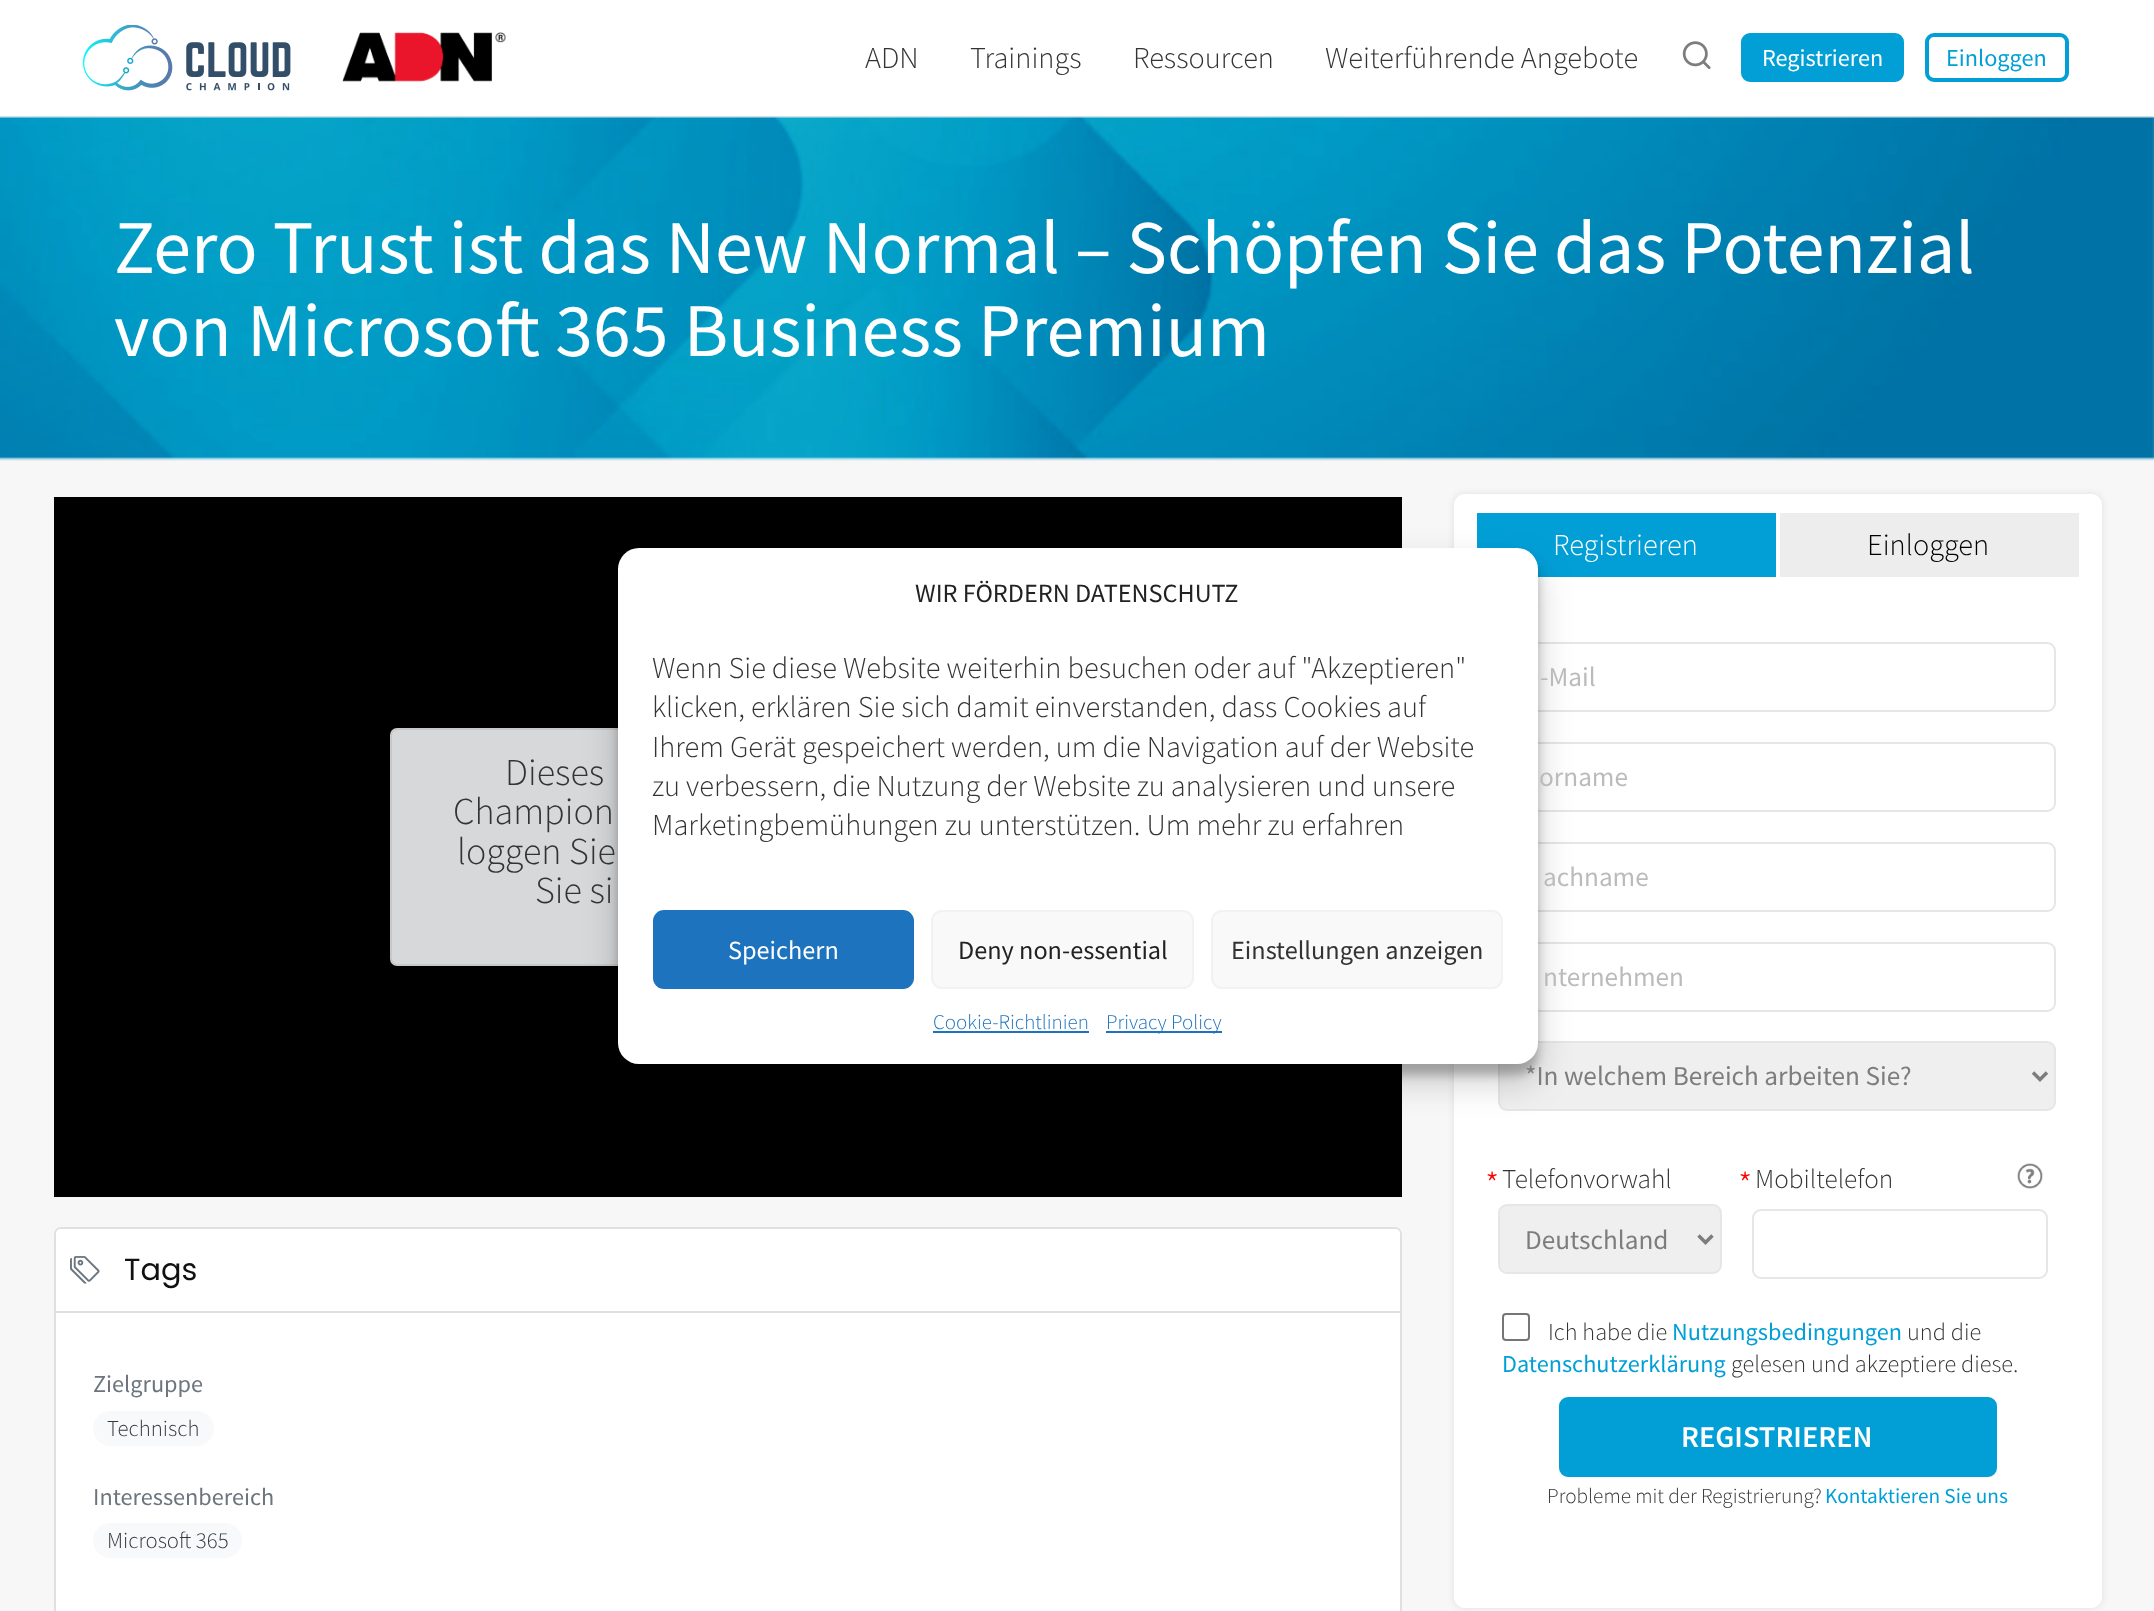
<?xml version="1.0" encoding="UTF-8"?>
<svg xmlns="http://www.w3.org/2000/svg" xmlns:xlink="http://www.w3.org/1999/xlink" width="2154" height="1611">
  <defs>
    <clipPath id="clip1"><path d="M 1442 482 h 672 v 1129 h -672 z m 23 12 h 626 c 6 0 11 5 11 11 v 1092 c 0 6 -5 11 -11 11 h -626 c -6 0 -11 -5 -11 -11 v -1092 c 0 -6 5 -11 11 -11 z" clip-rule="evenodd" /></clipPath>
  </defs>
  <rect width="100%" height="100%" fill="#ffffff" />
  <rect y="116" width="2154" height="2" fill="#ededed" />
  <image x="82" y="25" width="209" height="66" xlink:href="image1.png" />
  <image x="342" y="32" width="164" height="50" xlink:href="image2.png" />
  <image x="1682" y="41" width="29" height="28" xlink:href="image3.png" />
  <rect x="1743" y="35" width="159" height="45" rx="7" fill="#029fd7" stroke="#029fd7" stroke-width="4" />
  <rect x="1927" y="35" width="140" height="45" rx="7" fill="none" stroke="#029fd7" stroke-width="4" />
  <rect y="459" width="2154" height="1152" fill="#f7f7f7" />
  <image x="0" y="116" width="2154" height="345" xlink:href="image4.png" />
  <rect x="54" y="497" width="1348" height="700" fill="#000000" />
  <rect x="391" y="729" width="672" height="236" rx="6" fill="#d6d8d9" stroke="#c6c8ca" stroke-width="2" />
  <rect x="54" y="1227" width="1348" height="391" rx="7" fill="#ffffff" />
  <rect x="55" y="1228" width="1346" height="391" rx="6" fill="none" stroke="#000000" stroke-opacity="0.12" stroke-width="2" />
  <path d="M 61 1229 h 1334 c 3 0 5 2 5 5 v 79 h -1344 v -79 c 0 -3 2 -5 5 -5 z" fill="#ffffff" />
  <rect x="56" y="1311" width="1344" height="2" fill="#dfdfdf" />
  <image x="70" y="1256" width="30" height="28" xlink:href="image5.png" />
  <rect x="93" y="1411" width="121" height="35" rx="17.5" fill="#f8f9fa" />
  <rect x="93" y="1523" width="149" height="35" rx="17.5" fill="#f8f9fa" />
  <g clip-path="url(#clip1)">
    <rect x="1454" y="494" width="648" height="1114" rx="11" fill="#dfdfdf" filter="blur(3.5px)" />
  </g>
  <rect x="1454" y="494" width="648" height="1114" rx="11" fill="#ffffff" fill-opacity="0.9" />
  <rect x="1477" y="513" width="299" height="64" fill="#029fd7" />
  <rect x="1780" y="513" width="299" height="64" fill="#ededed" />
  <rect x="1499" y="643" width="556" height="68" rx="8" fill="none" stroke="#e6e6e6" stroke-width="2" />
  <rect x="1499" y="743" width="556" height="68" rx="8" fill="none" stroke="#e6e6e6" stroke-width="2" />
  <rect x="1499" y="843" width="556" height="68" rx="8" fill="none" stroke="#e6e6e6" stroke-width="2" />
  <rect x="1499" y="943" width="556" height="68" rx="8" fill="none" stroke="#e6e6e6" stroke-width="2" />
  <rect x="1499" y="1042" width="556" height="68" rx="8" fill="#efefef" stroke="#e6e6e6" stroke-width="2" />
  <path d="M 2033 1072.5 l 7 7 l 7 -7" fill="none" stroke="#7d7d7d" stroke-width="3.5" />
  <rect x="1499" y="1205" width="222" height="68" rx="8" fill="#efefef" stroke="#e6e6e6" stroke-width="2" />
  <path d="M 1698.5 1235.5 l 7 7 l 7 -7" fill="none" stroke="#7d7d7d" stroke-width="3.5" />
  <image x="2017" y="1163" width="26" height="26" xlink:href="image6.png" />
  <rect x="1753" y="1210" width="294" height="68" rx="8" fill="none" stroke="#e6e6e6" stroke-width="2" />
  <rect x="1503" y="1314" width="26" height="26" rx="3" fill="none" stroke="#767676" stroke-width="2" />
  <rect x="1561" y="1399" width="434" height="76" rx="7" fill="#029fd7" stroke="#029fd7" stroke-width="4" />
  <rect x="618" y="558" width="920" height="517" rx="21" fill="#000000" fill-opacity="0.23" filter="blur(5px)" />
  <rect x="618" y="565" width="920" height="517" rx="21" fill="#000000" fill-opacity="0.19" filter="blur(17.5px)" />
  <rect x="618" y="548" width="920" height="516" rx="21" fill="#ffffff" />
  <rect x="654" y="911" width="259" height="77" rx="10" fill="#1e73be" stroke="#1e73be" stroke-width="2" />
  <rect x="932" y="911" width="261" height="77" rx="10" fill="#f9f9f9" stroke="#f2f2f2" stroke-width="2" />
  <rect x="1212" y="911" width="290" height="77" rx="10" fill="#f9f9f9" stroke="#f2f2f2" stroke-width="2" />
  <rect x="933" y="1031" width="156" height="2" fill="#1e73be" />
  <rect x="1106" y="1031" width="116" height="2" fill="#1e73be" />
  <text x="865" y="68" style="font-family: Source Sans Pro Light; font-size: 30.35px; font-weight: 300; fill: #333333">ADN</text>
  <text x="970" y="68" style="font-family: Source Sans Pro Light; font-size: 30.35px; font-weight: 300; fill: #333333">Trainings</text>
  <text x="1133" y="68" style="font-family: Source Sans Pro Light; font-size: 30.35px; font-weight: 300; fill: #333333">Ressourcen</text>
  <text x="1325" y="68" style="font-family: Source Sans Pro Light; font-size: 30.35px; font-weight: 300; fill: #333333">Weiterführende Angebote</text>
  <text x="1762" y="66" style="font-family: Source Sans Pro; font-size: 24.25px; fill: #ffffff">Registrieren</text>
  <text x="1946" y="66" style="font-family: Source Sans Pro; font-size: 24.25px; fill: #029fd7">Einloggen</text>
  <text x="114" y="273" style="font-family: Source Sans Pro; font-size: 75.9px; fill: #ffffff">Zero Trust ist das New Normal – Schöpfen Sie das Potenzial</text>
  <text x="114" y="356" style="font-family: Source Sans Pro; font-size: 75.9px; fill: #ffffff">von Microsoft 365 Business Premium</text>
  <text x="505" y="785" style="font-family: Source Sans Pro Light; font-size: 38px; font-weight: 300; fill: #333333">Dieses</text>
  <text x="453" y="824" style="font-family: Source Sans Pro Light; font-size: 38px; font-weight: 300; fill: #333333">Champion</text>
  <text x="457" y="864" style="font-family: Source Sans Pro Light; font-size: 38px; font-weight: 300; fill: #333333">loggen Sie</text>
  <text x="535" y="903" style="font-family: Source Sans Pro Light; font-size: 38px; font-weight: 300; fill: #333333">Sie si</text>
  <text x="124" y="1280" style="font-family: Poppins; font-size: 30.35px; fill: #111111">Tags</text>
  <text x="93" y="1392" style="font-family: Source Sans Pro; font-size: 24.25px; fill: #6c757d">Zielgruppe</text>
  <text x="107" y="1436" style="font-family: Source Sans Pro Light; font-size: 22.75px; font-weight: 300; fill: #343a40">Technisch</text>
  <text x="93" y="1505" style="font-family: Source Sans Pro; font-size: 24.25px; fill: #6c757d">Interessenbereich</text>
  <text x="107" y="1548" style="font-family: Source Sans Pro Light; font-size: 22.75px; font-weight: 300; fill: #343a40">Microsoft 365</text>
  <text x="1553" y="555" style="font-family: Source Sans Pro Light; font-size: 30.35px; font-weight: 300; fill: #ffffff">Registrieren</text>
  <text x="1867" y="555" style="font-family: Source Sans Pro Light; font-size: 30.35px; font-weight: 300; fill: #000000">Einloggen</text>
  <text x="1540" y="686" style="font-family: Source Sans Pro; font-size: 27.25px; fill: #bbbbbb">-Mail</text>
  <text x="1539" y="786" style="font-family: Source Sans Pro; font-size: 27.25px; fill: #bbbbbb">orname</text>
  <text x="1543" y="886" style="font-family: Source Sans Pro; font-size: 27.25px; fill: #bbbbbb">achname</text>
  <text x="1543" y="986" style="font-family: Source Sans Pro; font-size: 27.25px; fill: #bbbbbb">nternehmen</text>
  <text x="1525" y="1085" style="font-family: Source Sans Pro; font-size: 27.25px; fill: #7d7d7d">*In welchem Bereich arbeiten Sie?</text>
  <text x="1485" y="1197" style="font-family: Source Sans Pro Light; font-size: 36px; font-weight: 300; fill: #ff0000">*</text>
  <text x="1502" y="1188" style="font-family: Source Sans Pro Light; font-size: 27.25px; font-weight: 300; fill: #333333">Telefonvorwahl</text>
  <text x="1525" y="1249" style="font-family: Source Sans Pro; font-size: 27.25px; fill: #7d7d7d">Deutschland</text>
  <text x="1738" y="1197" style="font-family: Source Sans Pro Light; font-size: 36px; font-weight: 300; fill: #ff0000">*</text>
  <text x="1755" y="1188" style="font-family: Source Sans Pro Light; font-size: 27.25px; font-weight: 300; fill: #333333">Mobiltelefon</text>
  <text x="1548" y="1340" style="font-family: Source Sans Pro Light; font-size: 24.25px; font-weight: 300; fill: #333333">Ich habe die</text>
  <text x="1672" y="1340" style="font-family: Source Sans Pro; font-size: 24.25px; fill: #029fd7">Nutzungsbedingungen</text>
  <text x="1907" y="1340" style="font-family: Source Sans Pro Light; font-size: 24.25px; font-weight: 300; fill: #333333">und die</text>
  <text x="1502" y="1372" style="font-family: Source Sans Pro; font-size: 24.25px; fill: #029fd7">Datenschutzerklärung</text>
  <text x="1731" y="1372" style="font-family: Source Sans Pro Light; font-size: 24.25px; font-weight: 300; fill: #333333">gelesen und akzeptiere diese.</text>
  <text x="1681" y="1447" style="font-family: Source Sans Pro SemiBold; font-size: 30.35px; font-weight: 600; fill: #ffffff">REGISTRIEREN</text>
  <text x="1547" y="1503" style="font-family: Source Sans Pro Light; font-size: 21.25px; font-weight: 300; fill: #333333">Probleme mit der Registrierung?</text>
  <text x="1825" y="1503" style="font-family: Source Sans Pro; font-size: 21.25px; fill: #029fd7">Kontaktieren Sie uns</text>
  <text x="915" y="602" style="font-family: Source Sans Pro; font-size: 26.25px; fill: #222222">WIR FÖRDERN DATENSCHUTZ</text>
  <text x="652" y="678" style="font-family: Source Sans Pro Light; font-size: 30.35px; font-weight: 300; fill: #333333">Wenn Sie diese Website weiterhin besuchen oder auf "Akzeptieren"</text>
  <text x="652" y="717" style="font-family: Source Sans Pro Light; font-size: 30.35px; font-weight: 300; fill: #333333">klicken, erklären Sie sich damit einverstanden, dass Cookies auf</text>
  <text x="652" y="757" style="font-family: Source Sans Pro Light; font-size: 30.35px; font-weight: 300; fill: #333333">Ihrem Gerät gespeichert werden, um die Navigation auf der Website</text>
  <text x="652" y="796" style="font-family: Source Sans Pro Light; font-size: 30.35px; font-weight: 300; fill: #333333">zu verbessern, die Nutzung der Website zu analysieren und unsere</text>
  <text x="652" y="835" style="font-family: Source Sans Pro Light; font-size: 30.35px; font-weight: 300; fill: #333333">Marketingbemühungen zu unterstützen. Um mehr zu erfahren</text>
  <text x="728" y="959" style="font-family: Source Sans Pro; font-size: 26.25px; fill: #ffffff">Speichern</text>
  <text x="958" y="959" style="font-family: Source Sans Pro; font-size: 26.25px; fill: #222222">Deny non-essential</text>
  <text x="1231" y="959" style="font-family: Source Sans Pro; font-size: 26.25px; fill: #333333">Einstellungen anzeigen</text>
  <text x="933" y="1029" style="font-family: Source Sans Pro Light; font-size: 21px; font-weight: 300; fill: #1e73be">Cookie-Richtlinien</text>
  <text x="1106" y="1029" style="font-family: Source Sans Pro Light; font-size: 21px; font-weight: 300; fill: #1e73be">Privacy Policy</text>
</svg>
